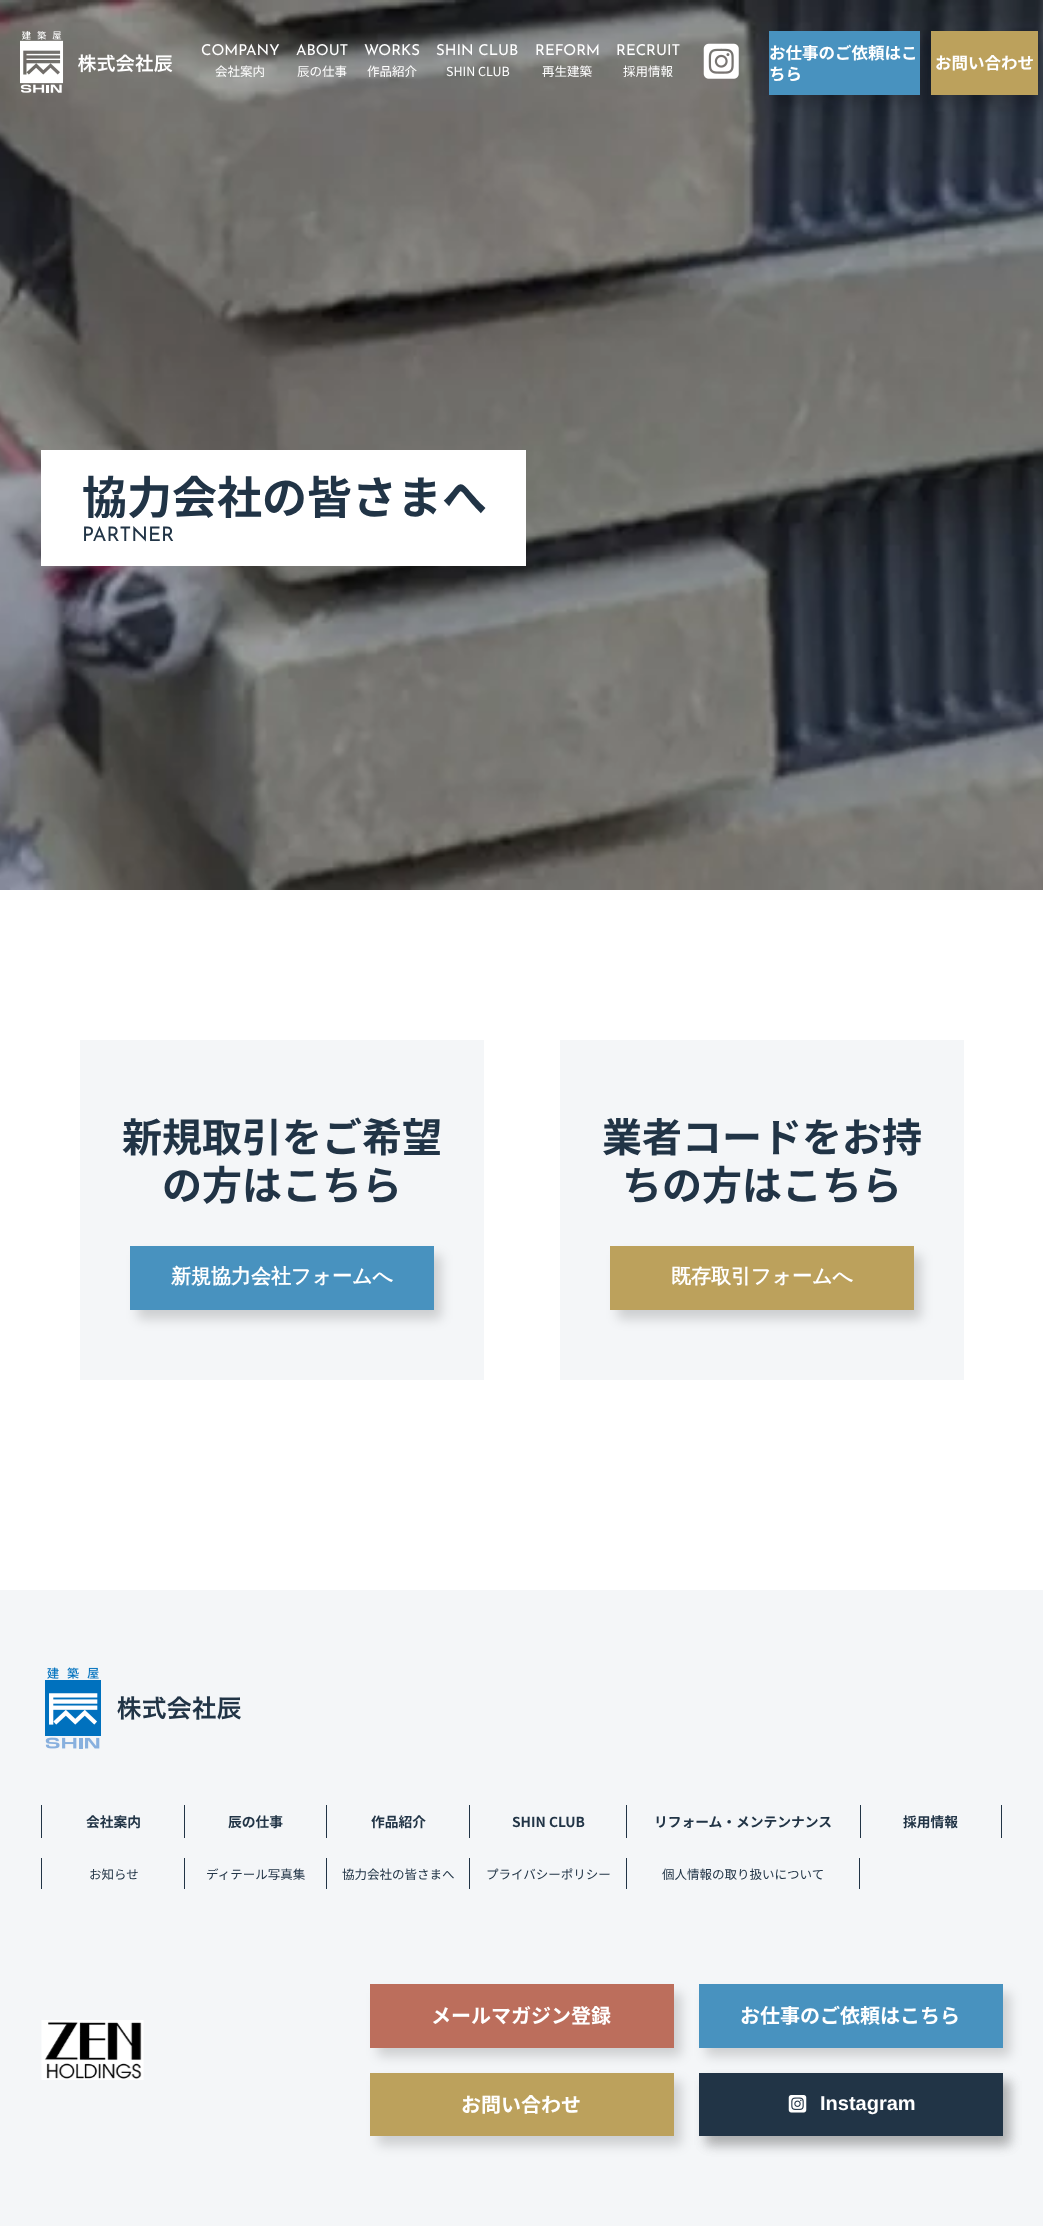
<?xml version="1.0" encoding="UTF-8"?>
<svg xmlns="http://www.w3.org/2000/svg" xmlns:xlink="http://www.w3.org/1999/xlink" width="1043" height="2226">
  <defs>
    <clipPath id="clip1"><path d="M 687 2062 h 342 v 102 h -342 z m 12 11 h 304 v 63 h -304 z" clip-rule="evenodd" /></clipPath>
  </defs>
  <rect width="100%" height="100%" fill="#ffffff" />
  <image x="0" y="0" width="1043" height="890" xlink:href="image3.png" />
  <image x="20" y="31" width="153" height="62" xlink:href="image1.png" />
  <image x="703" y="43" width="36" height="36" xlink:href="image2.png" />
  <rect x="776" y="40" width="152" height="64" fill="#000000" fill-opacity="0.16" filter="blur(6px)" />
  <rect x="769" y="31" width="151" height="64" fill="#4892bf" />
  <rect x="939" y="40" width="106" height="64" fill="#000000" fill-opacity="0.16" filter="blur(6px)" />
  <rect x="931" y="31" width="107" height="64" fill="#bca15c" />
  <rect x="41" y="450" width="485" height="116" fill="#ffffff" />
  <rect x="80" y="1040" width="404" height="340" fill="#f4f6f8" />
  <rect x="138" y="1255" width="303" height="64" fill="#000000" fill-opacity="0.16" filter="blur(6px)" />
  <rect x="130" y="1246" width="304" height="64" fill="#4892bf" />
  <rect x="560" y="1040" width="404" height="340" fill="#f4f6f8" />
  <rect x="618" y="1255" width="303" height="64" fill="#000000" fill-opacity="0.16" filter="blur(6px)" />
  <rect x="610" y="1246" width="304" height="64" fill="#bca15c" />
  <rect y="1590" width="1043" height="636" fill="#f4f6f8" />
  <image x="45" y="1667" width="196" height="82" xlink:href="image4.png" />
  <rect x="41" y="1805" width="1" height="33" fill="#213446" />
  <rect x="184" y="1805" width="1" height="33" fill="#213446" />
  <rect x="326" y="1805" width="1" height="33" fill="#213446" />
  <rect x="469" y="1805" width="1" height="33" fill="#213446" />
  <rect x="626" y="1805" width="1" height="33" fill="#213446" />
  <rect x="1001" y="1805" width="1" height="33" fill="#213446" />
  <rect x="860" y="1805" width="1" height="33" fill="#213446" />
  <rect x="41" y="1858" width="1" height="31" fill="#213446" />
  <rect x="184" y="1858" width="1" height="31" fill="#213446" />
  <rect x="326" y="1858" width="1" height="31" fill="#213446" />
  <rect x="469" y="1858" width="1" height="31" fill="#213446" />
  <rect x="859" y="1858" width="1" height="31" fill="#213446" />
  <rect x="626" y="1858" width="1" height="31" fill="#213446" />
  <image x="41" y="2020" width="103" height="60" xlink:href="image5.png" />
  <rect x="706" y="2081" width="304" height="64" fill="#000000" fill-opacity="0.16" filter="blur(6px)" />
  <rect x="699" y="2073" width="304" height="63" fill="#213446" />
  <rect x="378" y="1993" width="303" height="63" fill="#000000" fill-opacity="0.16" filter="blur(6px)" />
  <rect x="370" y="1984" width="304" height="64" fill="#bc6e5c" />
  <rect x="706" y="1993" width="304" height="63" fill="#000000" fill-opacity="0.16" filter="blur(6px)" />
  <rect x="699" y="1984" width="304" height="64" fill="#4892bf" />
  <rect x="378" y="2081" width="303" height="64" fill="#000000" fill-opacity="0.16" filter="blur(6px)" />
  <rect x="370" y="2073" width="304" height="63" fill="#bca15c" />
  <g clip-path="url(#clip1)">
    <rect x="706" y="2081" width="304" height="64" fill="#000000" fill-opacity="0.16" filter="blur(6px)" />
  </g>
  <image x="788" y="2095" width="19" height="18" xlink:href="image6.png" />
  <text x="201" y="55" style="font-family: Josefin Sans; font-size: 15px; fill: #ffffff">COMPANY</text>
  <text x="215" y="76" style="font-family: Noto Sans JP; font-size: 12.5px; fill: #ffffff">会社案内</text>
  <text x="296" y="55" style="font-family: Josefin Sans; font-size: 15px; fill: #ffffff">ABOUT</text>
  <text x="297" y="76" style="font-family: Noto Sans JP; font-size: 12.5px; fill: #ffffff">辰の仕事</text>
  <text x="364" y="55" style="font-family: Josefin Sans; font-size: 15px; fill: #ffffff">WORKS</text>
  <text x="367" y="76" style="font-family: Noto Sans JP; font-size: 12.5px; fill: #ffffff">作品紹介</text>
  <text x="436" y="55" style="font-family: Josefin Sans; font-size: 15px; fill: #ffffff">SHIN CLUB</text>
  <text x="446" y="76" style="font-family: Noto Sans JP; font-size: 12.5px; fill: #ffffff">SHIN CLUB</text>
  <text x="535" y="55" style="font-family: Josefin Sans; font-size: 15px; fill: #ffffff">REFORM</text>
  <text x="542" y="76" style="font-family: Noto Sans JP; font-size: 12.5px; fill: #ffffff">再生建築</text>
  <text x="616" y="55" style="font-family: Josefin Sans; font-size: 15px; fill: #ffffff">RECRUIT</text>
  <text x="623" y="76" style="font-family: Noto Sans JP; font-size: 12.5px; fill: #ffffff">採用情報</text>
  <text x="769" y="59" style="font-family: Noto Sans JP; font-size: 16.5px; font-weight: bold; fill: #ffffff">お仕事のご依頼はこ</text>
  <text x="769" y="80" style="font-family: Noto Sans JP; font-size: 16.5px; font-weight: bold; fill: #ffffff">ちら</text>
  <text x="935" y="69" style="font-family: Noto Sans JP; font-size: 16.5px; font-weight: bold; fill: #ffffff">お問い合わせ</text>
  <text x="82" y="514" style="font-family: Noto Sans JP; font-size: 45px; font-weight: bold; fill: #213446">協力会社の皆さまへ</text>
  <text x="82" y="541" style="font-family: Josefin Sans; font-size: 20px; fill: #213446">PARTNER</text>
  <text x="122" y="1152" style="font-family: Noto Sans JP; font-size: 40px; font-weight: bold; fill: #213446">新規取引をご希望</text>
  <text x="162" y="1200" style="font-family: Noto Sans JP; font-size: 40px; font-weight: bold; fill: #213446">の方はこちら</text>
  <text x="171" y="1283" style="font-family: WenQuanYi Zen Hei; font-size: 20px; font-weight: bold; fill: #ffffff">新規協力会社フォームへ</text>
  <text x="602" y="1152" style="font-family: Noto Sans JP; font-size: 40px; font-weight: bold; fill: #213446">業者コードをお持</text>
  <text x="622" y="1200" style="font-family: Noto Sans JP; font-size: 40px; font-weight: bold; fill: #213446">ちの方はこちら</text>
  <text x="671" y="1283" style="font-family: WenQuanYi Zen Hei; font-size: 20px; font-weight: bold; fill: #ffffff">既存取引フォームへ</text>
  <text x="86" y="1827" style="font-family: Noto Sans JP; font-size: 13.75px; font-weight: bold; fill: #213446">会社案内</text>
  <text x="228" y="1827" style="font-family: Noto Sans JP; font-size: 13.75px; font-weight: bold; fill: #213446">辰の仕事</text>
  <text x="371" y="1827" style="font-family: Noto Sans JP; font-size: 13.75px; font-weight: bold; fill: #213446">作品紹介</text>
  <text x="512" y="1827" style="font-family: Noto Sans JP; font-size: 13.75px; font-weight: bold; fill: #213446">SHIN CLUB</text>
  <text x="654" y="1827" style="font-family: Noto Sans JP; font-size: 13.75px; font-weight: bold; fill: #213446">リフォーム・メンテンナンス</text>
  <text x="903" y="1827" style="font-family: Noto Sans JP; font-size: 13.75px; font-weight: bold; fill: #213446">採用情報</text>
  <text x="89" y="1879" style="font-family: Noto Sans JP; font-size: 12.5px; fill: #213446">お知らせ</text>
  <text x="206" y="1879" style="font-family: Noto Sans JP; font-size: 12.5px; fill: #213446">ディテール写真集</text>
  <text x="342" y="1879" style="font-family: Noto Sans JP; font-size: 12.5px; fill: #213446">協力会社の皆さまへ</text>
  <text x="486" y="1879" style="font-family: Noto Sans JP; font-size: 12.5px; fill: #213446">プライバシーポリシー</text>
  <text x="662" y="1879" style="font-family: Noto Sans JP; font-size: 12.5px; fill: #213446">個人情報の取り扱いについて</text>
  <text x="431" y="2023" style="font-family: Noto Sans JP; font-size: 20px; font-weight: bold; fill: #ffffff">メールマガジン登録</text>
  <text x="740" y="2023" style="font-family: Noto Sans JP; font-size: 20px; font-weight: bold; fill: #ffffff">お仕事のご依頼はこちら</text>
  <text x="461" y="2112" style="font-family: Noto Sans JP; font-size: 20px; font-weight: bold; fill: #ffffff">お問い合わせ</text>
  <text x="820" y="2110" style="font-family: Liberation Sans; font-size: 20px; font-weight: bold; fill: #ffffff">Instagram</text>
</svg>
